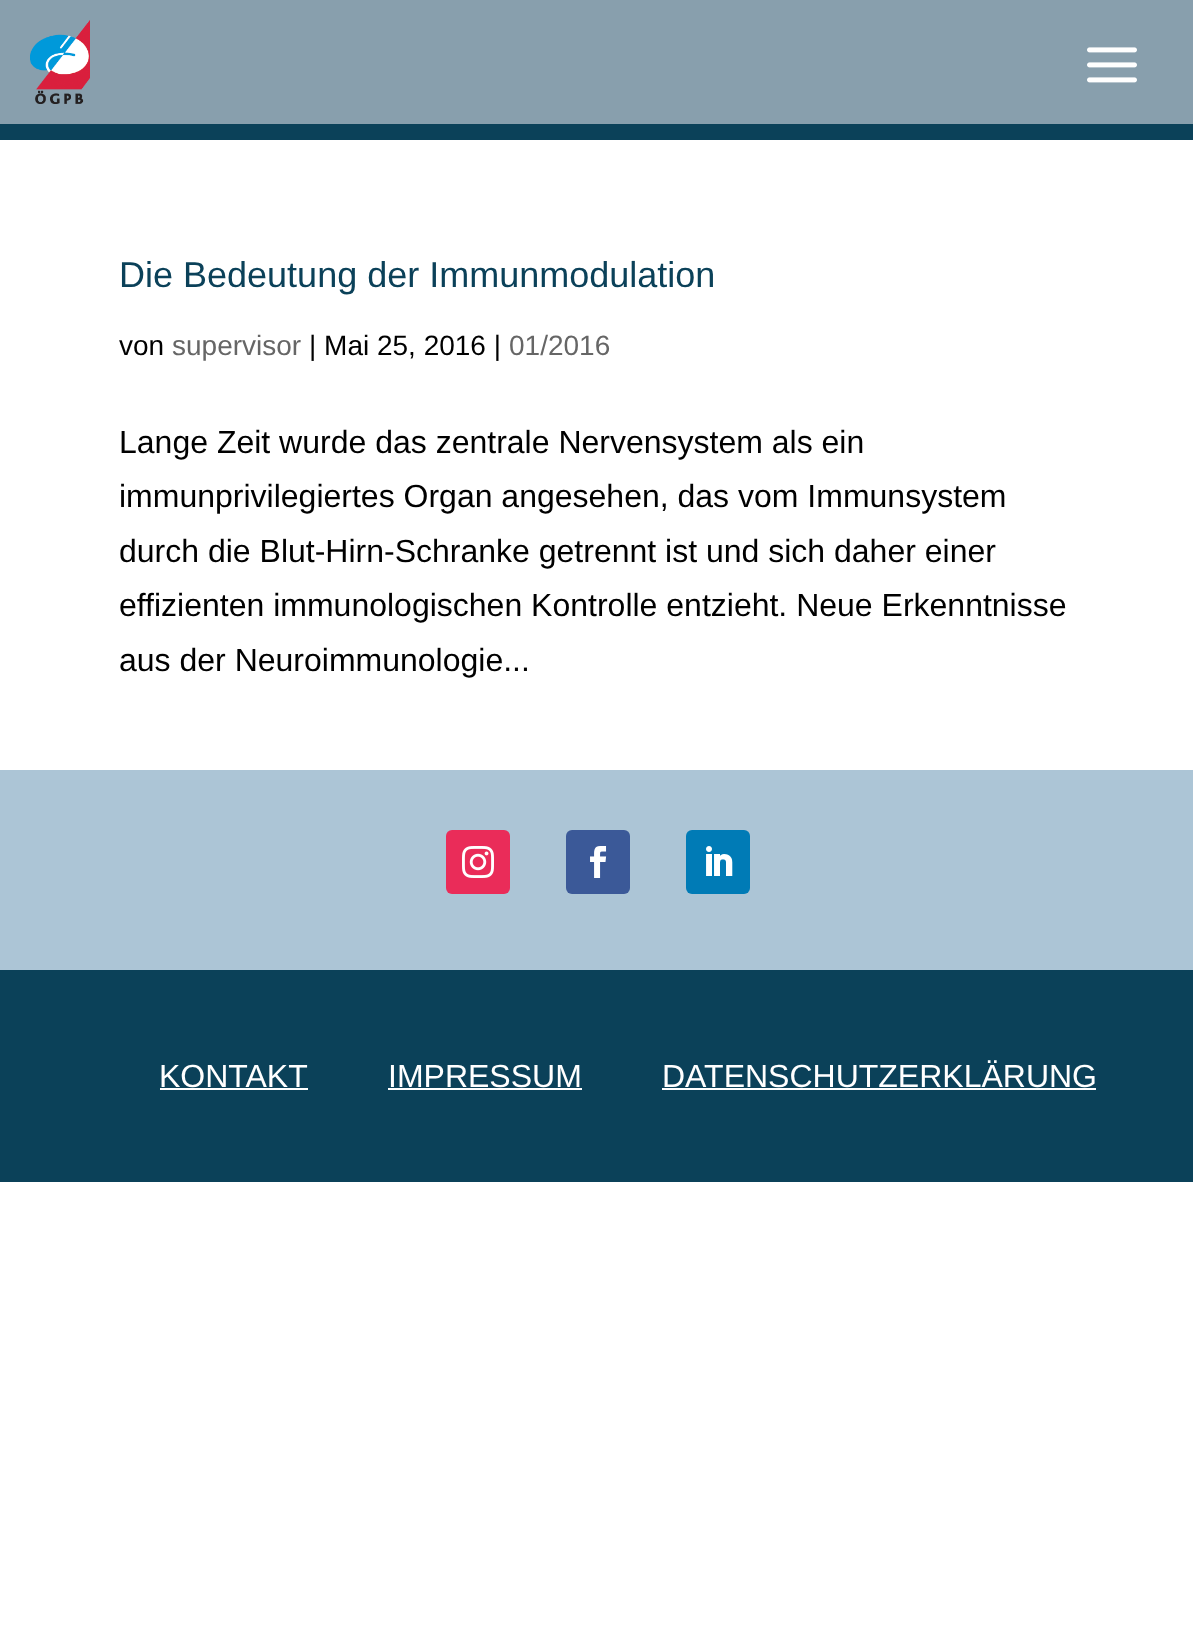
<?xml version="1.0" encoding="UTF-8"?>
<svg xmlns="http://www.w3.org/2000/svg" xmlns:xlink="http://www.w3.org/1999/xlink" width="1193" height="1648">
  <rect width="100%" height="100%" fill="#ffffff" />
  <rect width="1193" height="124" fill="#889fad" />
  <rect y="124" width="1193" height="16" fill="#0b4159" />
  <image x="30" y="20" width="60" height="84" xlink:href="image1.png" />
  <image x="1087" y="47" width="50" height="36" xlink:href="image2.png" />
  <rect y="770" width="1193" height="200" fill="#acc5d6" />
  <rect x="446" y="830" width="64" height="64" rx="6" fill="#ea2c59" />
  <image x="462" y="846" width="32" height="32" xlink:href="image3.png" />
  <rect x="566" y="830" width="64" height="64" rx="6" fill="#3b5998" />
  <image x="590" y="846" width="17" height="32" xlink:href="image4.png" />
  <rect x="686" y="830" width="64" height="64" rx="6" fill="#007bb6" />
  <image x="706" y="846" width="27" height="30" xlink:href="image5.png" />
  <rect y="970" width="1193" height="212" fill="#0b4159" />
  <rect x="160" y="1088" width="148" height="2" fill="#ffffff" />
  <rect x="388" y="1088" width="194" height="2" fill="#ffffff" />
  <rect x="662" y="1088" width="434" height="2" fill="#ffffff" />
  <text x="119" y="287" style="font-family: Liberation Sans; font-size: 36px; fill: #0b4159">Die Bedeutung der Immunmodulation</text>
  <text x="119" y="355" style="font-family: Liberation Sans; font-size: 28px; fill: #000000">von</text>
  <text x="172" y="355" style="font-family: Liberation Sans; font-size: 28px; fill: #666666">supervisor</text>
  <text x="309" y="355" style="font-family: Liberation Sans; font-size: 28px; fill: #000000">| Mai 25, 2016 |</text>
  <text x="509" y="355" style="font-family: Liberation Sans; font-size: 28px; fill: #666666">01/2016</text>
  <text x="119" y="453" style="font-family: Liberation Sans; font-size: 32px; fill: #000000">Lange Zeit wurde das zentrale Nervensystem als ein</text>
  <text x="119" y="507" style="font-family: Liberation Sans; font-size: 32px; fill: #000000">immunprivilegiertes Organ angesehen, das vom Immunsystem</text>
  <text x="119" y="562" style="font-family: Liberation Sans; font-size: 32px; fill: #000000">durch die Blut-Hirn-Schranke getrennt ist und sich daher einer</text>
  <text x="119" y="616" style="font-family: Liberation Sans; font-size: 32px; fill: #000000">effizienten immunologischen Kontrolle entzieht. Neue Erkenntnisse</text>
  <text x="119" y="671" style="font-family: Liberation Sans; font-size: 32px; fill: #000000">aus der Neuroimmunologie...</text>
  <text x="159" y="1087" style="font-family: Liberation Sans; font-size: 32px; fill: #ffffff">KONTAKT</text>
  <text x="388" y="1087" style="font-family: Liberation Sans; font-size: 32px; fill: #ffffff">IMPRESSUM</text>
  <text x="662" y="1087" style="font-family: Liberation Sans; font-size: 32px; fill: #ffffff">DATENSCHUTZERKLÄRUNG</text>
</svg>
